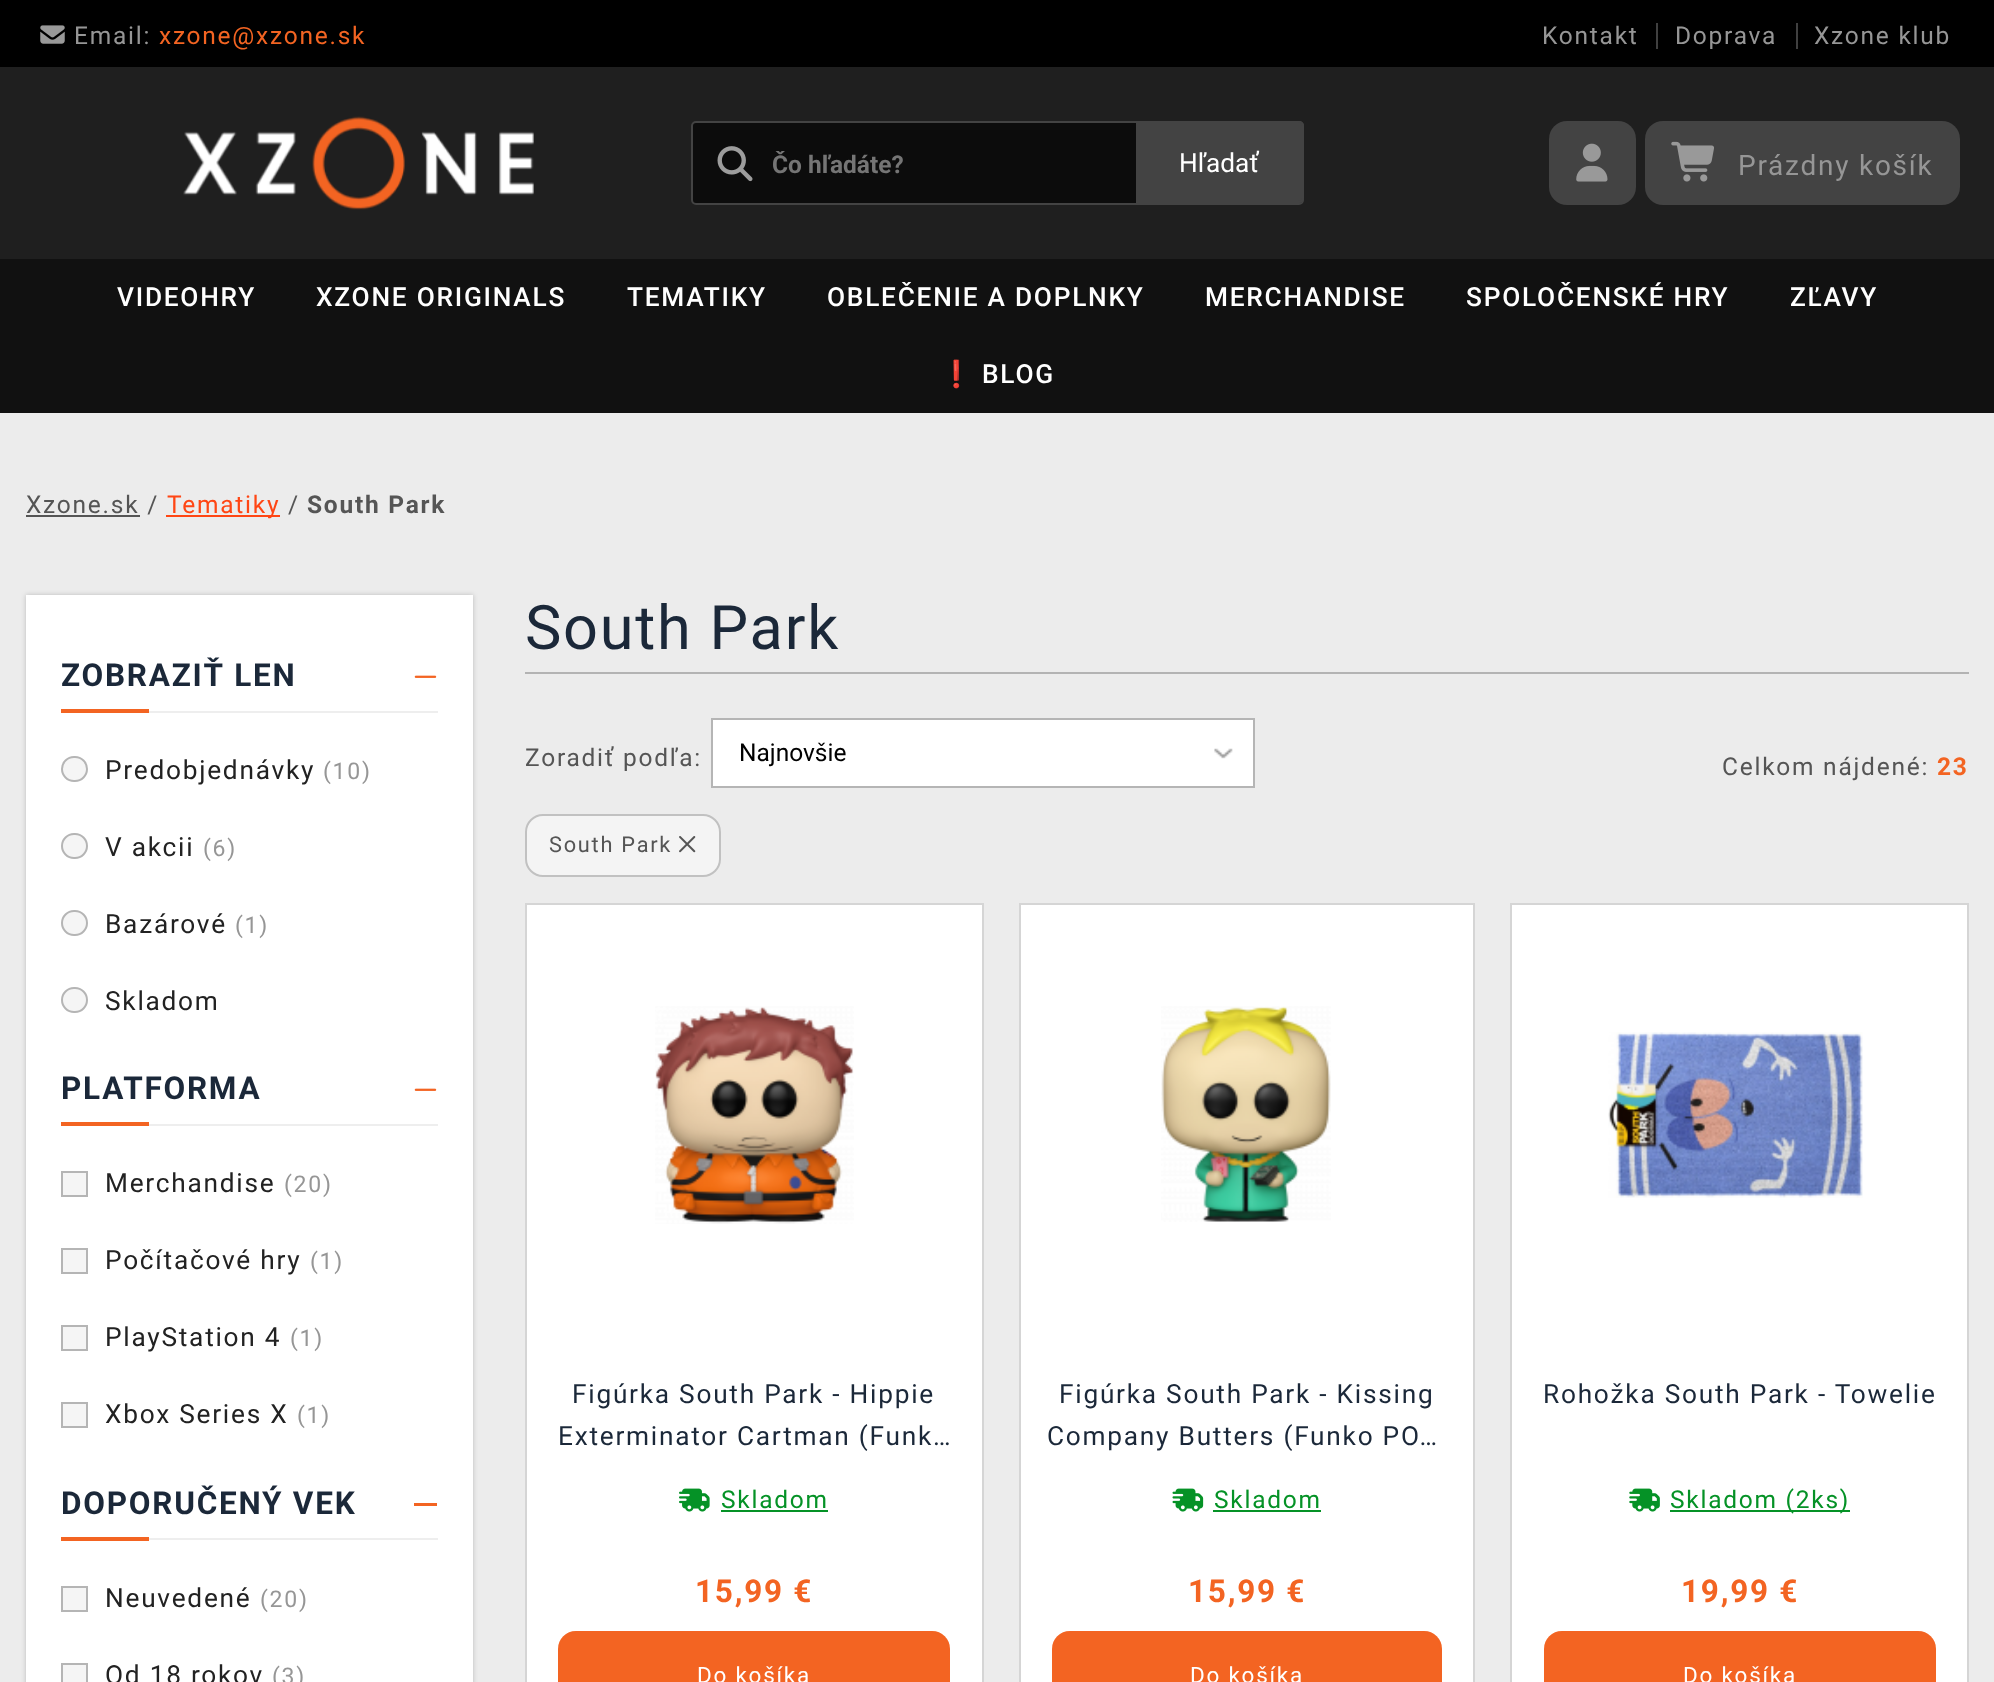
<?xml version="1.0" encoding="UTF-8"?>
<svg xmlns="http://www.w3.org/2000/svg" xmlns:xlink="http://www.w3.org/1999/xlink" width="1994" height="1682">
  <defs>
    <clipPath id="clip1"><rect x="772" y="151" width="530" height="28" /></clipPath>
  </defs>
  <rect width="100%" height="100%" fill="#ececec" />
  <rect width="1994" height="67" fill="#000000" />
  <image x="40" y="25" width="25" height="19" xlink:href="image1.png" />
  <rect x="1656" y="23" width="2" height="26" fill="#404040" />
  <rect x="1796" y="23" width="2" height="26" fill="#404040" />
  <rect y="67" width="1994" height="192" fill="#1f1f1f" />
  <image x="183" y="116" width="351" height="94" xlink:href="image2.png" />
  <rect x="692" y="122" width="611" height="82" rx="4" fill="#0c0c0c" stroke="#434343" stroke-width="2" />
  <image x="717" y="146" width="36" height="36" xlink:href="image3.png" />
  <path d="M 1136 121 h 163 c 3 0 5 2 5 5 v 72 c 0 3 -2 5 -5 5 h -163 z" fill="#434343" />
  <path d="M 1136 121 h 162 c 3 0 6 2 6 5 v 72 c 0 3 -3 5 -6 5 h -162 z m 0 1 h 162 c 2 0 4 2 4 4 v 72 c 0 2 -2 3 -4 3 h -162 z" fill="#434343" fill-rule="evenodd" />
  <rect x="1549" y="121" width="87" height="84" rx="18" fill="#434343" />
  <image x="1576" y="143" width="32" height="39" xlink:href="image4.png" />
  <rect x="1645" y="121" width="315" height="84" rx="18" fill="#434343" />
  <image x="1671" y="141" width="43" height="41" xlink:href="image5.png" />
  <rect y="259" width="1994" height="154" fill="#111111" />
  <rect x="26" y="515" width="114" height="2" fill="#555555" />
  <rect x="166" y="515" width="114" height="2" fill="#ff4614" />
  <rect x="26" y="595" width="447" height="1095" fill="#000000" fill-opacity="0.2" filter="blur(2.5px)" />
  <rect x="26" y="595" width="447" height="1087" fill="#ffffff" />
  <rect x="61" y="709" width="88" height="4" fill="#f36422" />
  <rect x="149" y="711" width="289" height="2" fill="#eeeeee" />
  <image x="414" y="675" width="23" height="3" xlink:href="image6.png" />
  <rect x="62" y="757" width="25" height="24" rx="12" fill="#f5f5f5" stroke="#b5b5b5" stroke-width="2" />
  <rect x="62" y="834" width="25" height="24" rx="12" fill="#f5f5f5" stroke="#b5b5b5" stroke-width="2" />
  <rect x="62" y="911" width="25" height="24" rx="12" fill="#f5f5f5" stroke="#b5b5b5" stroke-width="2" />
  <rect x="62" y="988" width="25" height="24" rx="12" fill="#f5f5f5" stroke="#b5b5b5" stroke-width="2" />
  <rect x="61" y="1122" width="88" height="4" fill="#f36422" />
  <rect x="149" y="1124" width="289" height="2" fill="#eeeeee" />
  <image x="414" y="1088" width="23" height="3" xlink:href="image6.png" />
  <rect x="62" y="1172" width="25" height="24" fill="#f5f5f5" stroke="#b5b5b5" stroke-width="2" />
  <rect x="62" y="1249" width="25" height="24" fill="#f5f5f5" stroke="#b5b5b5" stroke-width="2" />
  <rect x="62" y="1326" width="25" height="24" fill="#f5f5f5" stroke="#b5b5b5" stroke-width="2" />
  <rect x="62" y="1403" width="25" height="24" fill="#f5f5f5" stroke="#b5b5b5" stroke-width="2" />
  <rect x="61" y="1537" width="88" height="4" fill="#f36422" />
  <rect x="149" y="1538" width="289" height="2" fill="#eeeeee" />
  <rect x="414" y="1503" width="23" height="3" fill="#f36422" />
  <rect x="62" y="1587" width="25" height="24" fill="#f5f5f5" stroke="#b5b5b5" stroke-width="2" />
  <rect x="62" y="1664" width="25" height="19" fill="#f5f5f5" stroke="#b5b5b5" stroke-width="2" />
  <rect x="525" y="672" width="1444" height="2" fill="#b3b3b3" />
  <rect x="713" y="720" width="540" height="66" fill="#ffffff" />
  <image x="1214" y="748" width="19" height="11" xlink:href="image7.png" />
  <rect x="712" y="719" width="542" height="68" fill="none" stroke="#b5b5b5" stroke-width="2" />
  <rect x="526" y="815" width="194" height="61" rx="17" fill="#f4f4f4" stroke="#c1c1c1" stroke-width="2" />
  <image x="679" y="836" width="17" height="17" xlink:href="image8.png" />
  <rect x="526" y="904" width="457" height="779" fill="#ffffff" stroke="#d5d5d5" stroke-width="2" />
  <image x="655" y="1006" width="199" height="218" xlink:href="image9.png" />
  <image x="679" y="1488" width="31" height="24" xlink:href="image10.png" />
  <rect x="721" y="1510" width="107" height="2" fill="#059226" />
  <rect x="558" y="1631" width="392" height="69" rx="18" fill="#f36422" />
  <rect x="559" y="1632" width="390" height="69" rx="17" fill="none" stroke="#f36422" stroke-opacity="0.2" stroke-width="2" />
  <rect x="1020" y="904" width="454" height="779" fill="#ffffff" stroke="#d5d5d5" stroke-width="2" />
  <image x="1161" y="1006" width="170" height="216" xlink:href="image11.png" />
  <image x="1172" y="1488" width="32" height="24" xlink:href="image12.png" />
  <rect x="1213" y="1510" width="108" height="2" fill="#059226" />
  <rect x="1052" y="1631" width="390" height="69" rx="18" fill="#f36422" />
  <rect x="1053" y="1632" width="388" height="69" rx="17" fill="none" stroke="#f36422" stroke-opacity="0.2" stroke-width="2" />
  <rect x="1511" y="904" width="457" height="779" fill="#ffffff" stroke="#d5d5d5" stroke-width="2" />
  <image x="1608" y="1032" width="255" height="166" xlink:href="image13.png" />
  <image x="1629" y="1488" width="31" height="24" xlink:href="image14.png" />
  <rect x="1670" y="1510" width="180" height="2" fill="#059226" />
  <rect x="1544" y="1631" width="392" height="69" rx="18" fill="#f36422" />
  <rect x="1545" y="1632" width="390" height="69" rx="17" fill="none" stroke="#f36422" stroke-opacity="0.2" stroke-width="2" />
  <text x="74" y="44" style="font-family: Roboto; font-size: 24.5px; letter-spacing: 1.75px; fill: #969696">Email:</text>
  <text x="159" y="44" style="font-family: Roboto; font-size: 24.5px; letter-spacing: 1.75px; fill: #f36422">xzone@xzone.sk</text>
  <text x="1542" y="44" style="font-family: Roboto; font-size: 24.5px; letter-spacing: 1.75px; fill: #969696">Kontakt</text>
  <text x="1675" y="44" style="font-family: Roboto; font-size: 24.5px; letter-spacing: 1.75px; fill: #969696">Doprava</text>
  <text x="1814" y="44" style="font-family: Roboto; font-size: 24.5px; letter-spacing: 1.75px; fill: #969696">Xzone klub</text>
  <g clip-path="url(#clip1)">
    <text x="772" y="173" style="font-family: Roboto; font-size: 24.5px; font-weight: bold; fill: #757575">Čo hľadáte?</text>
  </g>
  <text x="1179" y="172" style="font-family: Roboto; font-size: 26.25px; fill: #ffffff">Hľadať</text>
  <text x="1738" y="175" style="font-family: Roboto; font-size: 28px; letter-spacing: 1.75px; fill: #969696">Prázdny košík</text>
  <text x="117" y="306" style="font-family: Roboto; font-size: 26.25px; font-weight: 500; letter-spacing: 1.75px; fill: #ffffff">VIDEOHRY</text>
  <text x="316" y="306" style="font-family: Roboto; font-size: 26.25px; font-weight: 500; letter-spacing: 1.75px; fill: #ffffff">XZONE ORIGINALS</text>
  <text x="627" y="306" style="font-family: Roboto; font-size: 26.25px; font-weight: 500; letter-spacing: 1.75px; fill: #ffffff">TEMATIKY</text>
  <text x="827" y="306" style="font-family: Roboto; font-size: 26.25px; font-weight: 500; letter-spacing: 1.75px; fill: #ffffff">OBLEČENIE A DOPLNKY</text>
  <text x="1205" y="306" style="font-family: Roboto; font-size: 26.25px; font-weight: 500; letter-spacing: 1.75px; fill: #ffffff">MERCHANDISE</text>
  <text x="1466" y="306" style="font-family: Roboto; font-size: 26.25px; font-weight: 500; letter-spacing: 1.75px; fill: #ffffff">SPOLOČENSKÉ HRY</text>
  <text x="1790" y="306" style="font-family: Roboto; font-size: 26.25px; font-weight: 500; letter-spacing: 1.75px; fill: #ffffff">ZĽAVY</text>
  <text x="940" y="383" style="font-family: Noto Color Emoji; font-size: 26.25px; letter-spacing: 1.75px; fill: #ffffff">❗</text>
  <text x="982" y="383" style="font-family: Roboto; font-size: 26.25px; font-weight: 500; letter-spacing: 1.75px; fill: #ffffff">BLOG</text>
  <text x="26" y="513" style="font-family: Roboto; font-size: 24.5px; letter-spacing: 1.75px; fill: #555555">Xzone.sk /</text>
  <text x="167" y="513" style="font-family: Roboto; font-size: 24.5px; letter-spacing: 1.75px; fill: #ff4614">Tematiky</text>
  <text x="288" y="513" style="font-family: Roboto; font-size: 24.5px; letter-spacing: 1.75px; fill: #555555">/</text>
  <text x="307" y="513" style="font-family: Roboto; font-size: 24.5px; font-weight: bold; letter-spacing: 1.75px; fill: #555555">South Park</text>
  <text x="61" y="686" style="font-family: Roboto; font-size: 31.5px; font-weight: bold; letter-spacing: 1.75px; fill: #1b2839">ZOBRAZIŤ LEN</text>
  <text x="105" y="779" style="font-family: Roboto; font-size: 26.25px; letter-spacing: 1.75px; fill: #222222">Predobjednávky</text>
  <text x="323" y="779" style="font-family: Roboto; font-size: 23px; letter-spacing: 1.75px; fill: #969696">(10)</text>
  <text x="105" y="856" style="font-family: Roboto; font-size: 26.25px; letter-spacing: 1.75px; fill: #222222">V akcii</text>
  <text x="203" y="856" style="font-family: Roboto; font-size: 23px; letter-spacing: 1.75px; fill: #969696">(6)</text>
  <text x="105" y="933" style="font-family: Roboto; font-size: 26.25px; letter-spacing: 1.75px; fill: #222222">Bazárové</text>
  <text x="235" y="933" style="font-family: Roboto; font-size: 23px; letter-spacing: 1.75px; fill: #969696">(1)</text>
  <text x="105" y="1010" style="font-family: Roboto; font-size: 26.25px; letter-spacing: 1.75px; fill: #222222">Skladom</text>
  <text x="61" y="1099" style="font-family: Roboto; font-size: 31.5px; font-weight: bold; letter-spacing: 1.75px; fill: #1b2839">PLATFORMA</text>
  <text x="105" y="1192" style="font-family: Roboto; font-size: 26.25px; letter-spacing: 1.75px; fill: #222222">Merchandise</text>
  <text x="284" y="1192" style="font-family: Roboto; font-size: 23px; letter-spacing: 1.75px; fill: #969696">(20)</text>
  <text x="105" y="1269" style="font-family: Roboto; font-size: 26.25px; letter-spacing: 1.75px; fill: #222222">Počítačové hry</text>
  <text x="310" y="1269" style="font-family: Roboto; font-size: 23px; letter-spacing: 1.75px; fill: #969696">(1)</text>
  <text x="105" y="1346" style="font-family: Roboto; font-size: 26.25px; letter-spacing: 1.75px; fill: #222222">PlayStation 4</text>
  <text x="290" y="1346" style="font-family: Roboto; font-size: 23px; letter-spacing: 1.75px; fill: #969696">(1)</text>
  <text x="105" y="1423" style="font-family: Roboto; font-size: 26.25px; letter-spacing: 1.75px; fill: #222222">Xbox Series X</text>
  <text x="297" y="1423" style="font-family: Roboto; font-size: 23px; letter-spacing: 1.75px; fill: #969696">(1)</text>
  <text x="61" y="1514" style="font-family: Roboto; font-size: 31.5px; font-weight: bold; letter-spacing: 1.75px; fill: #1b2839">DOPORUČENÝ VEK</text>
  <text x="105" y="1607" style="font-family: Roboto; font-size: 26.25px; letter-spacing: 1.75px; fill: #222222">Neuvedené</text>
  <text x="260" y="1607" style="font-family: Roboto; font-size: 23px; letter-spacing: 1.75px; fill: #969696">(20)</text>
  <text x="105" y="1684" style="font-family: Roboto; font-size: 26.25px; letter-spacing: 1.75px; fill: #222222">Od 18 rokov</text>
  <text x="272" y="1684" style="font-family: Roboto; font-size: 23px; letter-spacing: 1.75px; fill: #969696">(3)</text>
  <text x="525" y="649" style="font-family: Roboto; font-size: 61.25px; letter-spacing: 1.75px; fill: #1b2839">South Park</text>
  <text x="525" y="766" style="font-family: Roboto; font-size: 24.5px; letter-spacing: 1.75px; fill: #555555">Zoradiť podľa:</text>
  <text x="739" y="761" style="font-family: Roboto; font-size: 24.5px; fill: #000000">Najnovšie</text>
  <text x="1722" y="775" style="font-family: Roboto; font-size: 24.5px; letter-spacing: 1.75px; fill: #555555">Celkom nájdené:</text>
  <text x="1937" y="775" style="font-family: Roboto; font-size: 24.5px; font-weight: bold; letter-spacing: 1.75px; fill: #f36422">23</text>
  <text x="549" y="852" style="font-family: Roboto; font-size: 21.75px; letter-spacing: 1.75px; fill: #555555">South Park</text>
  <text x="572" y="1403" style="font-family: Roboto; font-size: 26.25px; letter-spacing: 1.75px; fill: #1b2839">Figúrka South Park - Hippie</text>
  <text x="558" y="1445" style="font-family: Roboto; font-size: 26.25px; letter-spacing: 1.75px; fill: #1b2839">Exterminator Cartman (Funk…</text>
  <text x="721" y="1508" style="font-family: Roboto; font-size: 24.5px; letter-spacing: 1.75px; fill: #059226">Skladom</text>
  <text x="695" y="1602" style="font-family: Roboto; font-size: 31.5px; font-weight: bold; letter-spacing: 1.75px; fill: #f36422">15,99 €</text>
  <text x="697" y="1683" style="font-family: Roboto; font-size: 22.5px; letter-spacing: 1.75px; fill: #ffffff">Do košíka</text>
  <text x="1059" y="1403" style="font-family: Roboto; font-size: 26.25px; letter-spacing: 1.75px; fill: #1b2839">Figúrka South Park - Kissing</text>
  <text x="1047" y="1445" style="font-family: Roboto; font-size: 26.25px; letter-spacing: 1.75px; fill: #1b2839">Company Butters (Funko PO…</text>
  <text x="1214" y="1508" style="font-family: Roboto; font-size: 24.5px; letter-spacing: 1.75px; fill: #059226">Skladom</text>
  <text x="1188" y="1602" style="font-family: Roboto; font-size: 31.5px; font-weight: bold; letter-spacing: 1.75px; fill: #f36422">15,99 €</text>
  <text x="1190" y="1683" style="font-family: Roboto; font-size: 22.5px; letter-spacing: 1.75px; fill: #ffffff">Do košíka</text>
  <text x="1543" y="1403" style="font-family: Roboto; font-size: 26.25px; letter-spacing: 1.75px; fill: #1b2839">Rohožka South Park - Towelie</text>
  <text x="1670" y="1508" style="font-family: Roboto; font-size: 24.5px; letter-spacing: 1.75px; fill: #059226">Skladom (2ks)</text>
  <text x="1681" y="1602" style="font-family: Roboto; font-size: 31.5px; font-weight: bold; letter-spacing: 1.75px; fill: #f36422">19,99 €</text>
  <text x="1683" y="1683" style="font-family: Roboto; font-size: 22.5px; letter-spacing: 1.75px; fill: #ffffff">Do košíka</text>
</svg>
